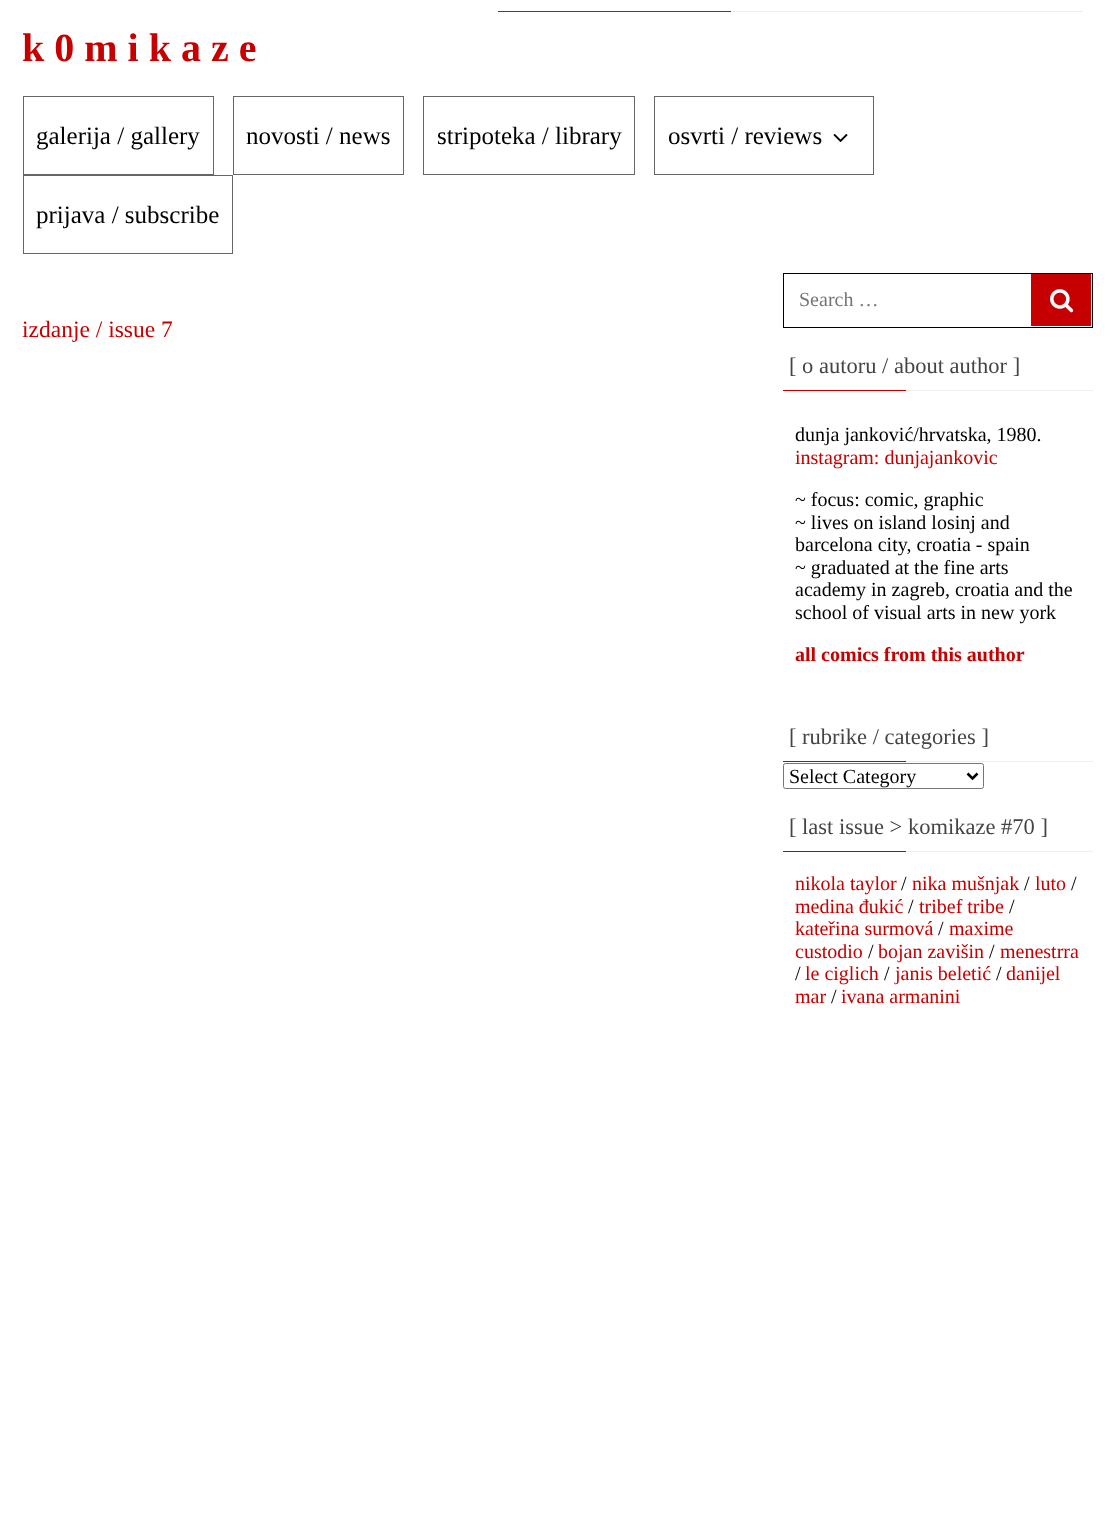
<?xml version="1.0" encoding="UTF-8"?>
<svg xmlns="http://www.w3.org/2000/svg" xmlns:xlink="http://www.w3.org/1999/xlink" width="1115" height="1538">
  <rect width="100%" height="100%" fill="#ffffff" />
  <rect x="731" y="11" width="352" height="1" fill="#eeeeee" />
  <rect x="498" y="11" width="233" height="1" fill="#444444" />
  <rect x="23.5" y="96.5" width="190" height="78" fill="none" stroke="#666666" />
  <rect x="233.5" y="96.5" width="170" height="78" fill="none" stroke="#666666" />
  <rect x="423.5" y="96.5" width="211" height="78" fill="none" stroke="#666666" />
  <rect x="654.5" y="96.5" width="219" height="78" fill="none" stroke="#666666" />
  <image x="833" y="134" width="15" height="8" xlink:href="image1.png" />
  <rect x="23.5" y="175.5" width="209" height="78" fill="none" stroke="#666666" />
  <rect x="783.5" y="273.5" width="309" height="54" fill="none" stroke="#000000" />
  <rect x="1031" y="274" width="60" height="52" fill="#c60000" />
  <image x="1050" y="289" width="24" height="24" xlink:href="image2.png" />
  <rect x="906" y="390" width="187" height="1" fill="#eeeeee" />
  <rect x="783" y="390" width="123" height="1" fill="#c60000" />
  <rect x="906" y="761" width="187" height="1" fill="#eeeeee" />
  <rect x="783" y="761" width="123" height="1" fill="#c60000" />
  <rect x="783.5" y="763.5" width="200" height="25" rx="2" fill="none" stroke="#767676" />
  <path d="M 967.5 773.5 l 5 5 l 5 -5" fill="none" stroke="#000000" stroke-width="2.5" />
  <rect x="906" y="851" width="187" height="1" fill="#eeeeee" />
  <rect x="783" y="851" width="123" height="1" fill="#c60000" />
  <text x="22" y="61" style="font-family: Liberation Serif; font-size: 40px; font-weight: bold; fill: #c60000">k 0 m i k a z e</text>
  <text x="36" y="144" style="font-family: Liberation Serif; font-size: 25px; fill: #000000">galerija / gallery</text>
  <text x="246" y="144" style="font-family: Liberation Serif; font-size: 25px; fill: #000000">novosti / news</text>
  <text x="437" y="144" style="font-family: Liberation Serif; font-size: 25px; fill: #000000">stripoteka / library</text>
  <text x="668" y="144" style="font-family: Liberation Serif; font-size: 25px; fill: #000000">osvrti / reviews</text>
  <text x="36" y="223" style="font-family: Liberation Serif; font-size: 25px; fill: #000000">prijava / subscribe</text>
  <text x="22" y="337" style="font-family: Liberation Serif; font-size: 23.5px; fill: #c60000">izdanje / issue 7</text>
  <text x="799" y="306" style="font-family: Liberation Serif; font-size: 20px; fill: #757575">Search …</text>
  <text x="789" y="373" style="font-family: Liberation Serif; font-size: 22.5px; fill: #444444">[ o autoru / about author ]</text>
  <text x="795" y="441" style="font-family: Liberation Serif; font-size: 20px; fill: #000000">dunja janković/hrvatska, 1980.</text>
  <text x="795" y="464" style="font-family: Liberation Serif; font-size: 20px; fill: #c60000">instagram: dunjajankovic</text>
  <text x="795" y="506" style="font-family: Liberation Serif; font-size: 20px; fill: #000000">~ focus: comic, graphic</text>
  <text x="795" y="529" style="font-family: Liberation Serif; font-size: 20px; fill: #000000">~ lives on island losinj and</text>
  <text x="795" y="551" style="font-family: Liberation Serif; font-size: 20px; fill: #000000">barcelona city, croatia - spain</text>
  <text x="795" y="574" style="font-family: Liberation Serif; font-size: 20px; fill: #000000">~ graduated at the fine arts</text>
  <text x="795" y="596" style="font-family: Liberation Serif; font-size: 20px; fill: #000000">academy in zagreb, croatia and the</text>
  <text x="795" y="619" style="font-family: Liberation Serif; font-size: 20px; fill: #000000">school of visual arts in new york</text>
  <text x="795" y="661" style="font-family: Liberation Serif; font-size: 20px; font-weight: bold; fill: #c60000">all comics from this author</text>
  <text x="789" y="744" style="font-family: Liberation Serif; font-size: 22.5px; fill: #444444">[ rubrike / categories ]</text>
  <text x="789" y="783" style="font-family: Liberation Serif; font-size: 20px; fill: #000000">Select Category</text>
  <text x="789" y="834" style="font-family: Liberation Serif; font-size: 22.5px; fill: #444444">[ last issue &gt; komikaze #70 ]</text>
  <text x="795" y="890" style="font-family: Liberation Serif; font-size: 20px; fill: #c60000">nikola taylor</text>
  <text x="901" y="890" style="font-family: Liberation Serif; font-size: 20px; fill: #000000">/</text>
  <text x="912" y="890" style="font-family: Liberation Serif; font-size: 20px; fill: #c60000">nika mušnjak</text>
  <text x="1024" y="890" style="font-family: Liberation Serif; font-size: 20px; fill: #000000">/</text>
  <text x="1035" y="890" style="font-family: Liberation Serif; font-size: 20px; fill: #c60000">luto</text>
  <text x="1071" y="890" style="font-family: Liberation Serif; font-size: 20px; fill: #000000">/</text>
  <text x="795" y="913" style="font-family: Liberation Serif; font-size: 20px; fill: #c60000">medina đukić</text>
  <text x="908" y="913" style="font-family: Liberation Serif; font-size: 20px; fill: #000000">/</text>
  <text x="919" y="913" style="font-family: Liberation Serif; font-size: 20px; fill: #c60000">tribef tribe</text>
  <text x="1009" y="913" style="font-family: Liberation Serif; font-size: 20px; fill: #000000">/</text>
  <text x="795" y="935" style="font-family: Liberation Serif; font-size: 20px; fill: #c60000">kateřina surmová</text>
  <text x="938" y="935" style="font-family: Liberation Serif; font-size: 20px; fill: #000000">/</text>
  <text x="949" y="935" style="font-family: Liberation Serif; font-size: 20px; fill: #c60000">maxime</text>
  <text x="795" y="958" style="font-family: Liberation Serif; font-size: 20px; fill: #c60000">custodio</text>
  <text x="868" y="958" style="font-family: Liberation Serif; font-size: 20px; fill: #000000">/</text>
  <text x="878" y="958" style="font-family: Liberation Serif; font-size: 20px; fill: #c60000">bojan zavišin</text>
  <text x="989" y="958" style="font-family: Liberation Serif; font-size: 20px; fill: #000000">/</text>
  <text x="1000" y="958" style="font-family: Liberation Serif; font-size: 20px; fill: #c60000">menestrra</text>
  <text x="795" y="980" style="font-family: Liberation Serif; font-size: 20px; fill: #000000">/</text>
  <text x="805" y="980" style="font-family: Liberation Serif; font-size: 20px; fill: #c60000">le ciglich</text>
  <text x="884" y="980" style="font-family: Liberation Serif; font-size: 20px; fill: #000000">/</text>
  <text x="895" y="980" style="font-family: Liberation Serif; font-size: 20px; fill: #c60000">janis beletić</text>
  <text x="996" y="980" style="font-family: Liberation Serif; font-size: 20px; fill: #000000">/</text>
  <text x="1006" y="980" style="font-family: Liberation Serif; font-size: 20px; fill: #c60000">danijel</text>
  <text x="795" y="1003" style="font-family: Liberation Serif; font-size: 20px; fill: #c60000">mar</text>
  <text x="831" y="1003" style="font-family: Liberation Serif; font-size: 20px; fill: #000000">/</text>
  <text x="841" y="1003" style="font-family: Liberation Serif; font-size: 20px; fill: #c60000">ivana armanini</text>
</svg>
